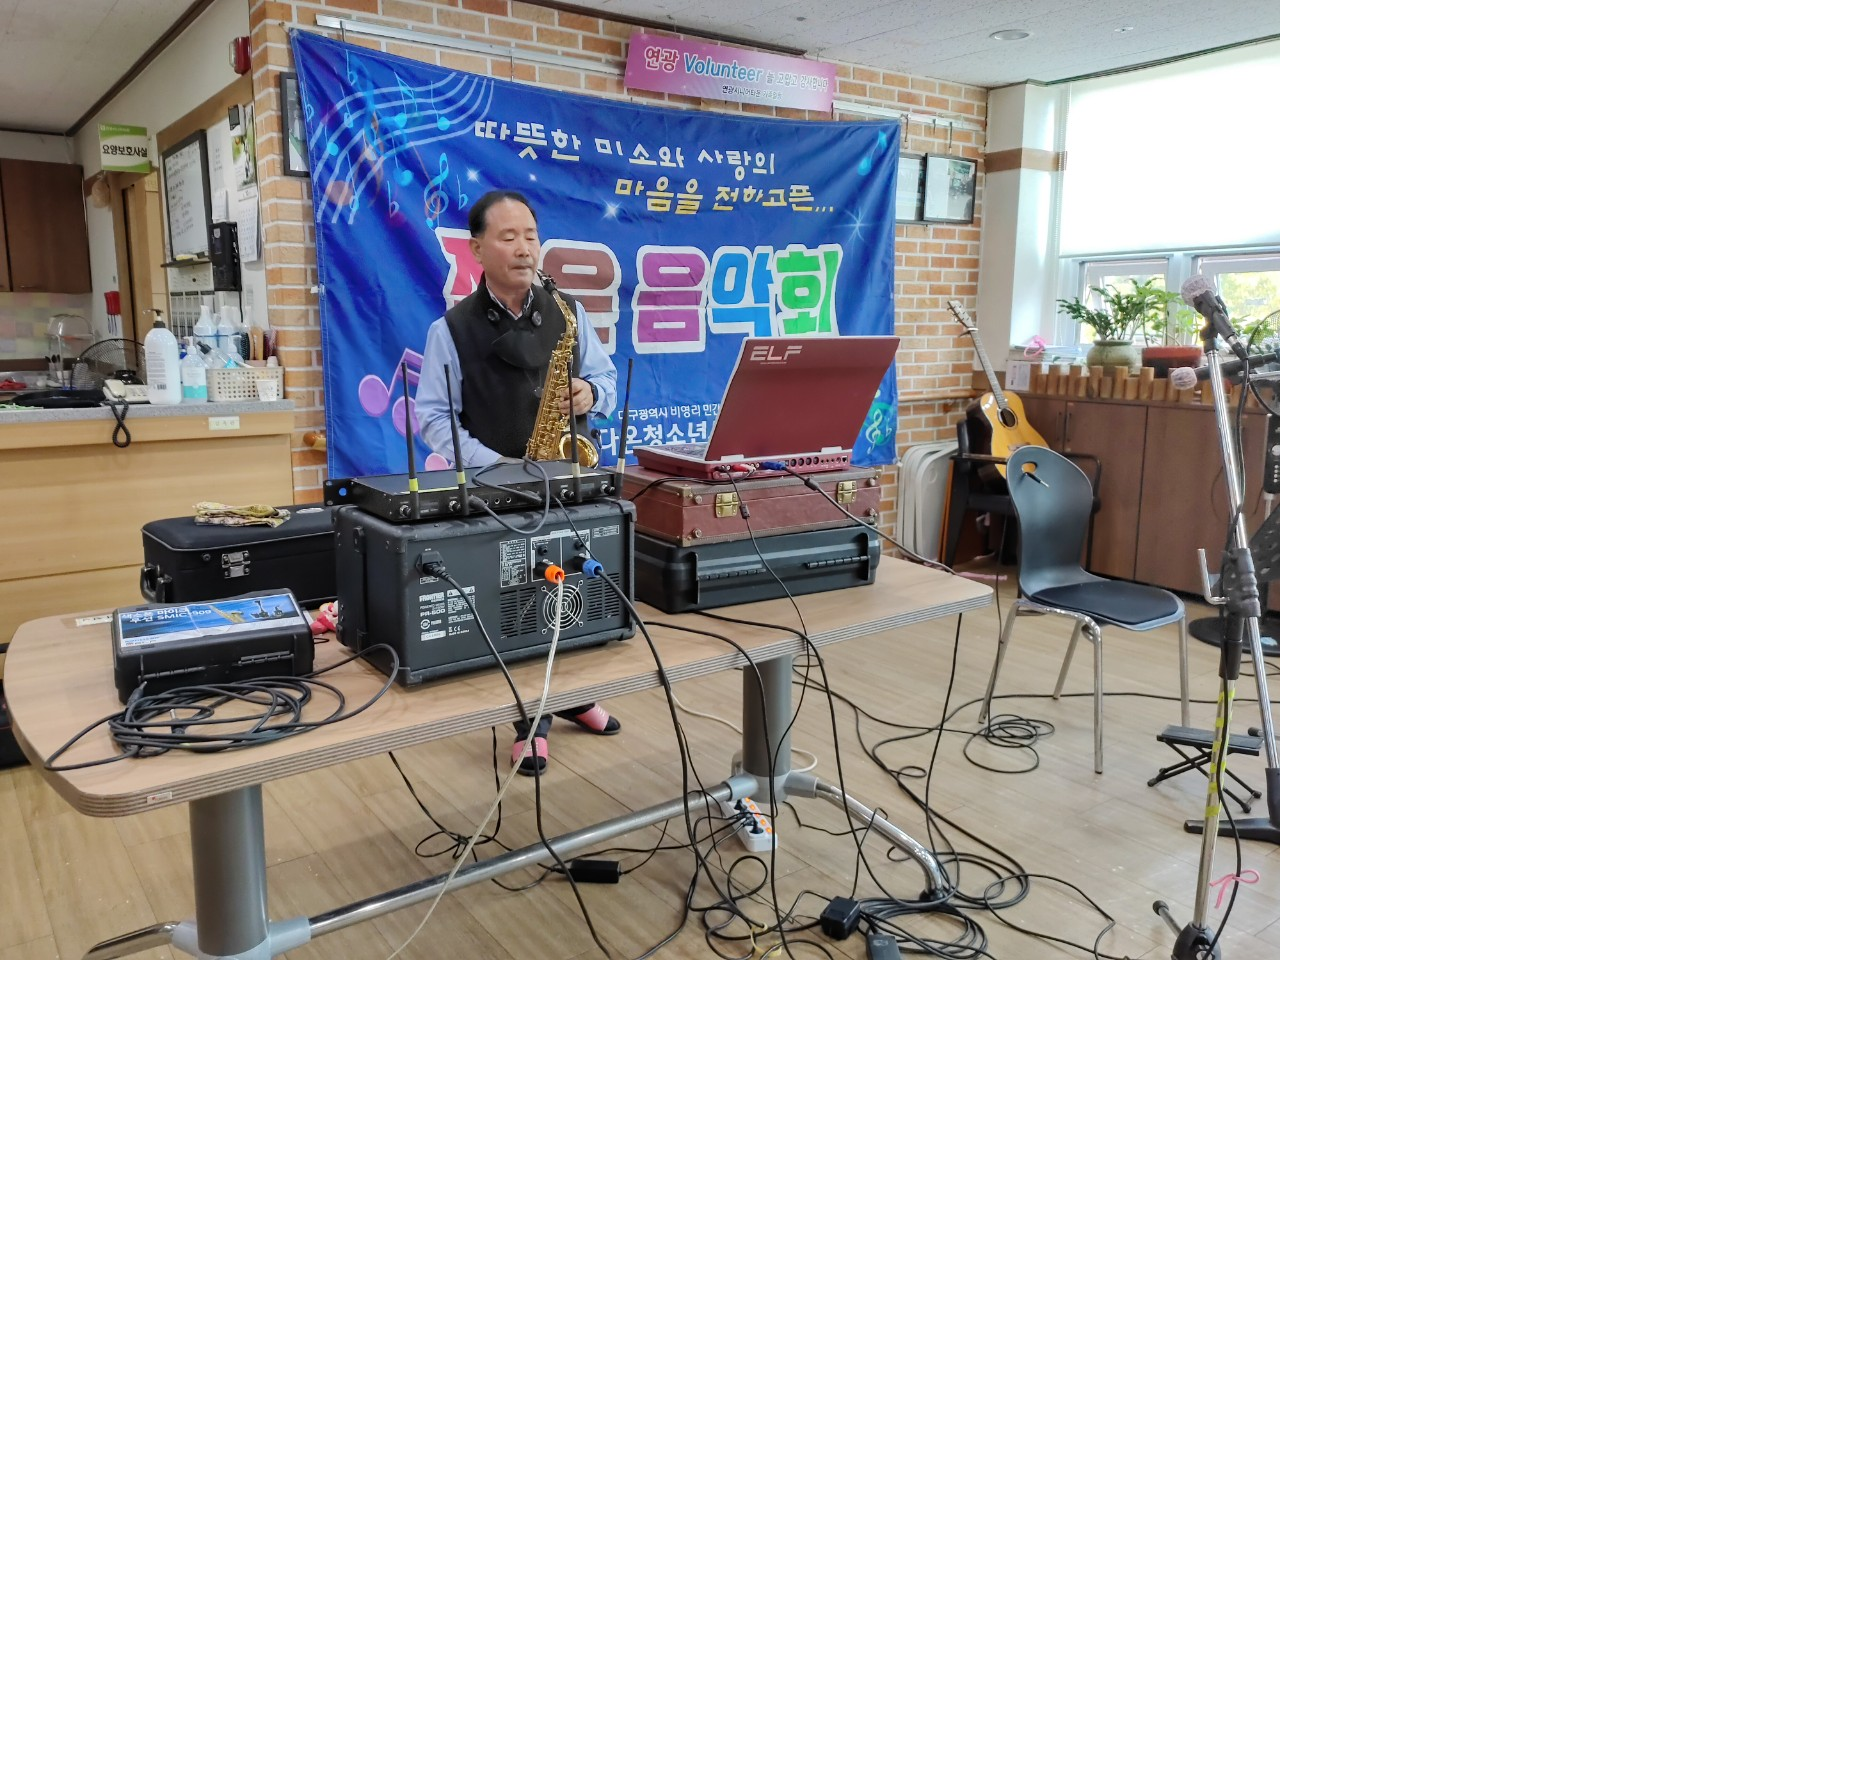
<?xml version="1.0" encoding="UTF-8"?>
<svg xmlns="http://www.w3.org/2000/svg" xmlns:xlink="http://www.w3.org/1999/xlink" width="1876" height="1789">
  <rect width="100%" height="100%" fill="#ffffff" />
  <image x="0" y="0" width="1280" height="960" xlink:href="image1.png" />
</svg>
